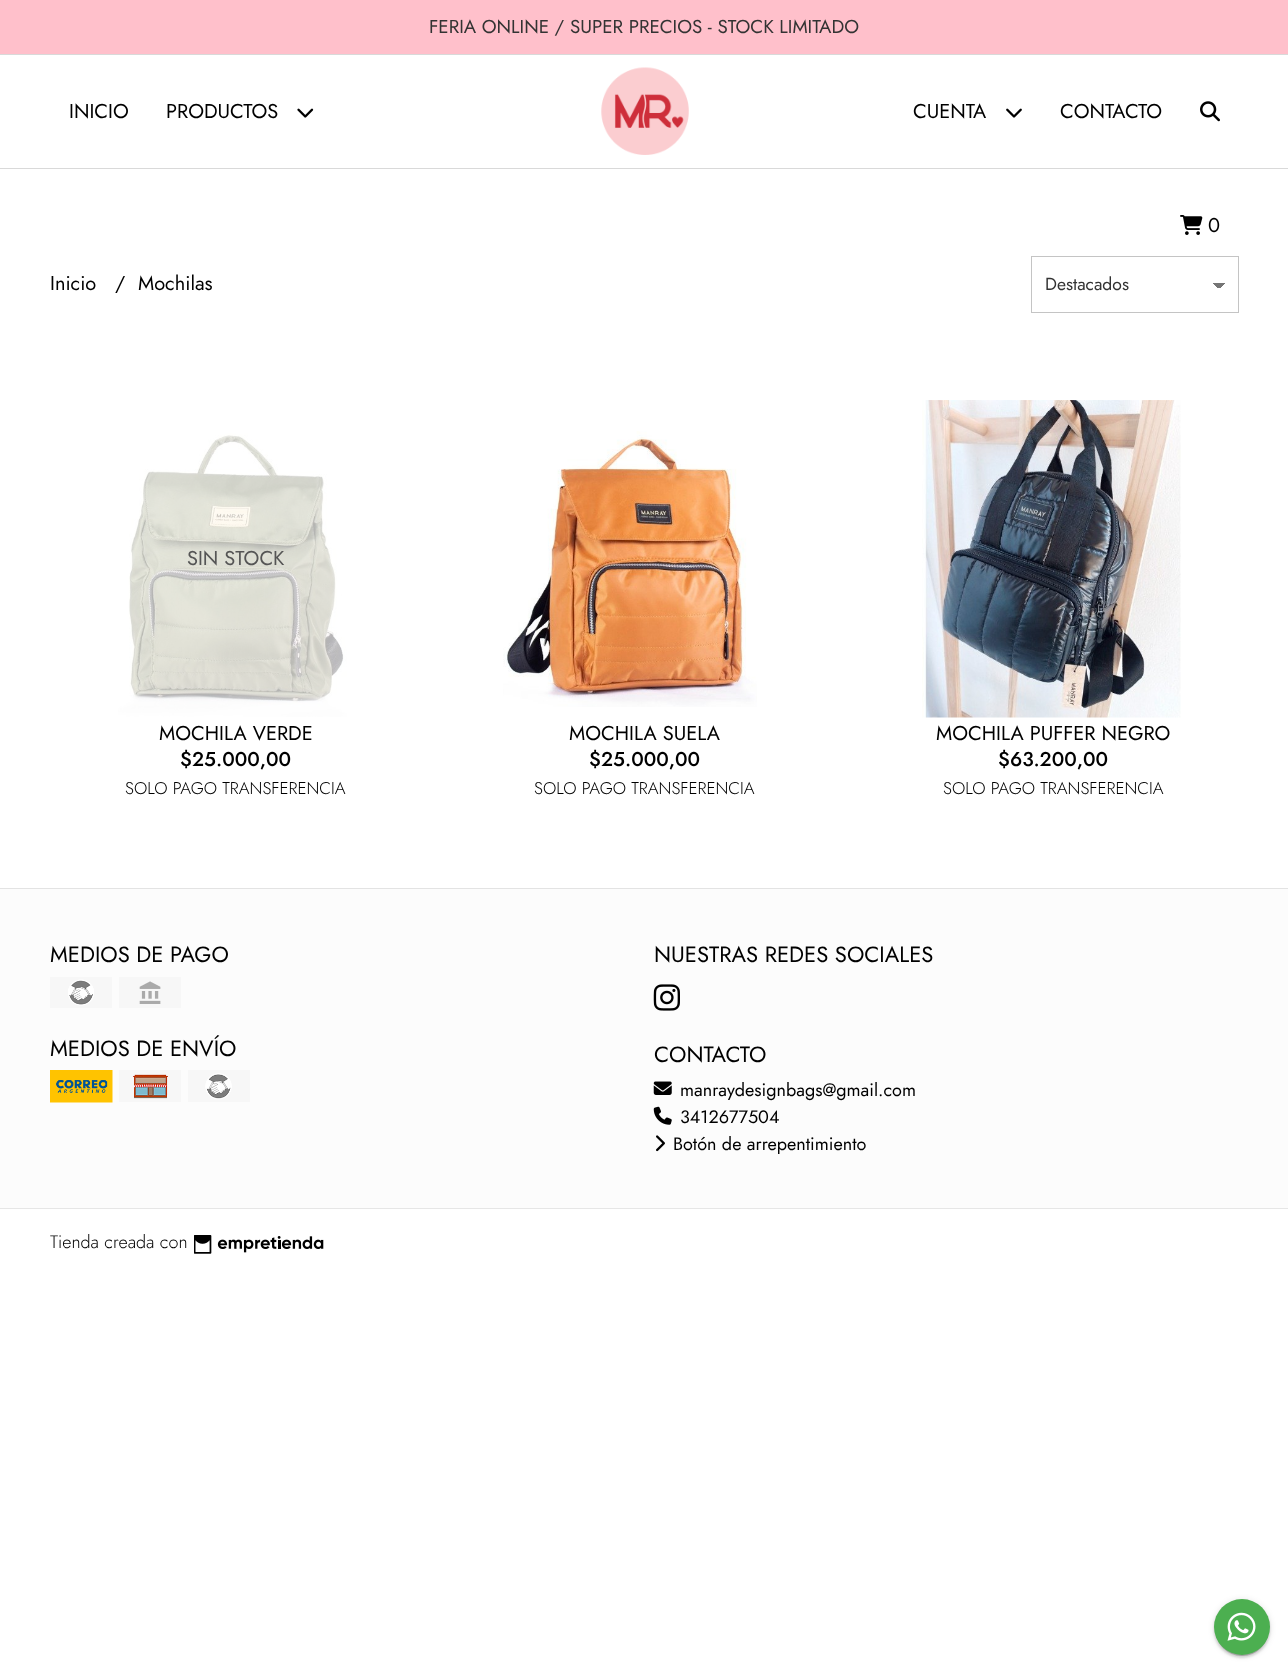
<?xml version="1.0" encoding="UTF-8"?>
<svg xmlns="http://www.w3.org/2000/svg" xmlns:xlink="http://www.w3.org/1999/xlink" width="1288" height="1673">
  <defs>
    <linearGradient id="g1" gradientUnits="userSpaceOnUse" x1="1219" y1="283" x2="1225" y2="289"><stop offset="0.5" stop-color="#757575" /><stop offset="0.5" stop-color="#ffffff" /></linearGradient>
    <linearGradient id="g2" gradientUnits="userSpaceOnUse" x1="1213" y1="289" x2="1219" y2="283"><stop offset="0.5" stop-color="#ffffff" /><stop offset="0.5" stop-color="#757575" /></linearGradient>
  </defs>
  <rect width="100%" height="100%" fill="#ffffff" />
  <rect width="1288" height="54" fill="#ffc0cb" />
  <rect y="54" width="1288" height="1" fill="#d9d9d9" />
  <rect y="168" width="1288" height="1" fill="#d9d9d9" />
  <image x="297" y="108" width="17" height="10" xlink:href="image1.png" />
  <image x="601" y="67" width="88" height="88" xlink:href="image2.png" />
  <image x="1006" y="108" width="16" height="10" xlink:href="image3.png" />
  <image x="1200" y="101" width="20" height="21" xlink:href="image4.png" />
  <image x="1180" y="215" width="23" height="20" xlink:href="image5.png" />
  <rect x="1219" y="283" width="6" height="5" fill="url(#g1)" />
  <rect x="1213" y="283" width="6" height="5" fill="url(#g2)" />
  <rect x="1031.5" y="256.5" width="207" height="56" fill="none" stroke="#c4c4c4" />
  <image x="118" y="433" width="229" height="284" xlink:href="image6.png" />
  <image x="503" y="431" width="254" height="276" xlink:href="image7.png" />
  <image x="922" y="400" width="259" height="318" xlink:href="image8.png" />
  <rect y="889" width="1288" height="319" fill="#fcfcfc" />
  <rect y="888" width="1288" height="1" fill="#e3e3e3" />
  <image x="50" y="977" width="62" height="31" xlink:href="image9.png" />
  <image x="119" y="977" width="62" height="31" xlink:href="image10.png" />
  <image x="50" y="1070" width="63" height="33" xlink:href="image11.png" />
  <image x="119" y="1070" width="62" height="32" xlink:href="image12.png" />
  <image x="188" y="1070" width="62" height="32" xlink:href="image13.png" />
  <image x="653" y="984" width="27" height="27" xlink:href="image14.png" />
  <image x="653" y="1081" width="19" height="14" xlink:href="image15.png" />
  <image x="653" y="1106" width="19" height="19" xlink:href="image16.png" />
  <image x="656" y="1135" width="9" height="17" xlink:href="image17.png" />
  <rect y="1208" width="1288" height="1" fill="#e6e6e6" />
  <image x="194" y="1235" width="130" height="19" xlink:href="image18.png" />
  <rect x="1216" y="1605" width="52" height="51" rx="25.5" fill="#000000" fill-opacity="0.2" filter="blur(0.5px)" />
  <rect x="1214" y="1600" width="56" height="56" rx="28" fill="#000000" fill-opacity="0.12" filter="blur(3px)" />
  <rect x="1214" y="1601" width="56" height="57" rx="28" fill="#000000" fill-opacity="0.14" filter="blur(1px)" />
  <circle cx="1242" cy="1627" r="28" fill="#4caf50" />
  <image x="1227" y="1612" width="29" height="29" xlink:href="image19.png" />
  <text x="429" y="33" style="font-family: Jost; font-size: 18.75px; fill: #333333">FERIA ONLINE / SUPER PRECIOS - STOCK LIMITADO</text>
  <text x="69" y="118" style="font-family: Jost; font-size: 20px; fill: #000000">INICIO</text>
  <text x="166" y="118" style="font-family: Jost; font-size: 20px; fill: #000000">PRODUCTOS</text>
  <text x="913" y="118" style="font-family: Jost; font-size: 20px; fill: #000000">CUENTA</text>
  <text x="1060" y="118" style="font-family: Jost; font-size: 20px; fill: #000000">CONTACTO</text>
  <text x="1208" y="232" style="font-family: Jost; font-size: 20px; fill: #000000">0</text>
  <text x="50" y="290" style="font-family: Jost; font-size: 20px; fill: #000000">Inicio</text>
  <text x="115" y="290" style="font-family: Jost; font-size: 20px; fill: #000000">/</text>
  <text x="138" y="290" style="font-family: Jost; font-size: 20px; fill: #000000">Mochilas</text>
  <text x="1045" y="290" style="font-family: Jost; font-size: 17.5px; fill: #333333">Destacados</text>
  <text x="187" y="565" style="font-family: Jost; font-size: 20px; fill: #555555">SIN STOCK</text>
  <text x="159" y="740" style="font-family: Jost; font-size: 20px; fill: #000000">MOCHILA VERDE</text>
  <text x="180" y="766" style="font-family: Jost; font-size: 20px; font-weight: 500; fill: #000000">$25.000,00</text>
  <text x="125" y="794" style="font-family: Jost; font-size: 17px; font-weight: 300; fill: #000000">SOLO PAGO TRANSFERENCIA</text>
  <text x="569" y="740" style="font-family: Jost; font-size: 20px; fill: #000000">MOCHILA SUELA</text>
  <text x="589" y="766" style="font-family: Jost; font-size: 20px; font-weight: 500; fill: #000000">$25.000,00</text>
  <text x="534" y="794" style="font-family: Jost; font-size: 17px; font-weight: 300; fill: #000000">SOLO PAGO TRANSFERENCIA</text>
  <text x="936" y="740" style="font-family: Jost; font-size: 20px; fill: #000000">MOCHILA PUFFER NEGRO</text>
  <text x="998" y="766" style="font-family: Jost; font-size: 20px; font-weight: 500; fill: #000000">$63.200,00</text>
  <text x="943" y="794" style="font-family: Jost; font-size: 17px; font-weight: 300; fill: #000000">SOLO PAGO TRANSFERENCIA</text>
  <text x="50" y="962" style="font-family: Jost; font-size: 22px; fill: #000000">MEDIOS DE PAGO</text>
  <text x="50" y="1056" style="font-family: Jost; font-size: 22px; fill: #000000">MEDIOS DE ENVÍO</text>
  <text x="654" y="962" style="font-family: Jost; font-size: 22px; fill: #000000">NUESTRAS REDES SOCIALES</text>
  <text x="654" y="1062" style="font-family: Jost; font-size: 22px; fill: #000000">CONTACTO</text>
  <text x="680" y="1096" style="font-family: Jost; font-size: 18px; fill: #000000">manraydesignbags@gmail.com</text>
  <text x="680" y="1123" style="font-family: Jost; font-size: 18px; fill: #000000">3412677504</text>
  <text x="673" y="1150" style="font-family: Jost; font-size: 18px; fill: #000000">Botón de arrepentimiento</text>
  <text x="50" y="1248" style="font-family: Jost; font-size: 18px; font-weight: 300; fill: #000000">Tienda creada con</text>
</svg>
